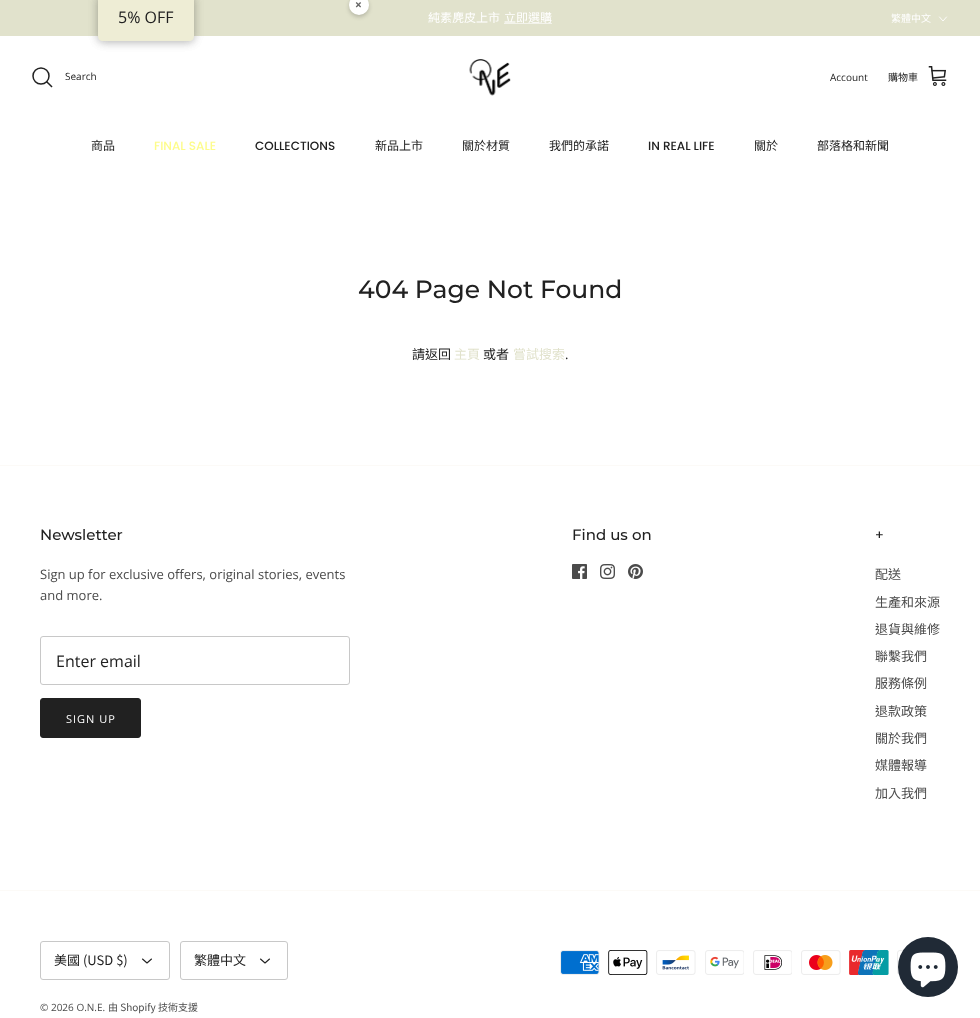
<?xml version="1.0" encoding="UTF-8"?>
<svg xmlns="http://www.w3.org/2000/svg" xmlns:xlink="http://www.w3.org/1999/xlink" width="980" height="1018">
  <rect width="100%" height="100%" fill="#ffffff" />
  <rect width="980" height="36" fill="#e1e2cc" />
  <rect x="98" y="-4" width="96" height="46" rx="5" fill="#000000" fill-opacity="0.16" filter="blur(5px)" />
  <rect x="98" y="-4" width="96" height="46" rx="5" fill="#000000" fill-opacity="0.16" filter="blur(5px)" />
  <path d="M 98 -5 h 96 v 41 c 0 3 -2 5 -5 5 h -86 c -3 0 -5 -2 -5 -5 z" fill="#eeedd5" />
  <rect x="349" y="-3" width="20" height="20" rx="10" fill="#000000" fill-opacity="0.2" filter="blur(2px)" />
  <circle cx="359" cy="5" r="10" fill="#ffffff" />
  <rect x="504" y="23" width="48" height="1" fill="#f3f3eb" />
  <path d="M 939.5 17 l 3.5 4 l 3.5 -4" fill="none" stroke="#ffffff" stroke-width="0.9" stroke-linecap="round" stroke-linejoin="round" />
  <circle cx="41" cy="76" r="8" fill="none" stroke="#212121" stroke-width="1.5" />
  <path d="M 47 82 l 4.5 4.5" fill="none" stroke="#212121" stroke-width="1.5" stroke-linecap="square" />
  <image x="469" y="59" width="42" height="37" xlink:href="image1.png" />
  <image x="928" y="66" width="19" height="20" xlink:href="image2.png" />
  <rect y="465" width="980" height="1" fill="#fcfaf7" />
  <rect x="40.5" y="636.5" width="309" height="48" rx="2.5" fill="none" stroke="#c8c8c8" />
  <rect x="40.5" y="698.5" width="100" height="39" rx="2.5" fill="#212121" stroke="#212121" />
  <image x="572" y="564" width="15" height="15" xlink:href="image3.png" />
  <image x="600" y="564" width="15" height="15" xlink:href="image4.png" />
  <image x="628" y="564" width="15" height="15" xlink:href="image5.png" />
  <rect y="890" width="980" height="1" fill="#fcfaf7" />
  <rect x="40.5" y="941.5" width="129" height="38" rx="2.5" fill="none" stroke="#c8c8c8" />
  <path d="M 142.5 959 l 4.5 4 l 4.5 -4" fill="none" stroke="#212121" stroke-width="1.1" stroke-linecap="round" stroke-linejoin="round" />
  <rect x="180.5" y="941.5" width="107" height="38" rx="2.5" fill="none" stroke="#c8c8c8" />
  <path d="M 260.5 959 l 4.5 4 l 4.5 -4" fill="none" stroke="#212121" stroke-width="1.1" stroke-linecap="round" stroke-linejoin="round" />
  <image x="560" y="950" width="40" height="25" xlink:href="image6.png" />
  <image x="608" y="950" width="40" height="25" xlink:href="image7.png" />
  <image x="656" y="950" width="40" height="25" xlink:href="image8.png" />
  <image x="705" y="950" width="39" height="25" xlink:href="image9.png" />
  <image x="753" y="950" width="39" height="25" xlink:href="image10.png" />
  <image x="801" y="950" width="40" height="25" xlink:href="image11.png" />
  <image x="849" y="950" width="40" height="25" xlink:href="image12.png" />
  <image x="897" y="950" width="7" height="25" xlink:href="image13.png" />
  <circle cx="928" cy="967" r="30" fill="#202a36" />
  <image x="910" y="952" width="36" height="36" xlink:href="image14.png" />
  <text x="355" y="9" style="font-family: Open Sans; font-size: 12px; font-weight: bold; fill: #666666">×</text>
  <text x="118" y="23" style="font-family: Open Sans; font-size: 16px; fill: #212121">5% OFF</text>
  <text x="428" y="22" style="font-family: Noto Sans CJK TC; font-size: 12px; fill: #ffffff">純素麂皮上市</text>
  <text x="504" y="22" style="font-family: Noto Sans CJK TC; font-size: 12px; fill: #ffffff">立即選購</text>
  <text x="891" y="22" style="font-family: Noto Sans CJK TC; font-size: 10px; fill: #ffffff">繁體中文</text>
  <text x="65" y="80" style="font-family: Open Sans; font-size: 10px; fill: #212121">Search</text>
  <text x="830" y="81" style="font-family: Open Sans; font-size: 10px; fill: #212121">Account</text>
  <text x="888" y="81" style="font-family: Noto Sans CJK TC; font-size: 10px; fill: #212121">購物車</text>
  <text x="91" y="150" style="font-family: Noto Sans CJK TC; font-size: 12px; fill: #212121">商品</text>
  <text x="154" y="150" style="font-family: Poppins; font-size: 12px; font-weight: 500; fill: #fdfc8b">FINAL SALE</text>
  <text x="255" y="150" style="font-family: Poppins; font-size: 12px; font-weight: 500; fill: #212121">COLLECTIONS</text>
  <text x="375" y="150" style="font-family: Noto Sans CJK TC; font-size: 12px; fill: #212121">新品上市</text>
  <text x="462" y="150" style="font-family: Noto Sans CJK TC; font-size: 12px; fill: #212121">關於材質</text>
  <text x="549" y="150" style="font-family: Noto Sans CJK TC; font-size: 12px; fill: #212121">我們的承諾</text>
  <text x="648" y="150" style="font-family: Poppins; font-size: 12px; font-weight: 500; fill: #212121">IN REAL LIFE</text>
  <text x="754" y="150" style="font-family: Noto Sans CJK TC; font-size: 12px; fill: #212121">關於</text>
  <text x="817" y="150" style="font-family: Noto Sans CJK TC; font-size: 12px; fill: #212121">部落格和新聞</text>
  <text x="358" y="298" style="font-family: Montserrat; font-size: 25px; font-weight: 500; fill: #212121">404 Page Not Found</text>
  <text x="412" y="359" style="font-family: Noto Sans CJK TC; font-size: 13px; fill: #212121">請返回</text>
  <text x="454" y="359" style="font-family: Noto Sans CJK TC; font-size: 13px; fill: #e1e2cc">主頁</text>
  <text x="483" y="359" style="font-family: Noto Sans CJK TC; font-size: 13px; fill: #212121">或者</text>
  <text x="513" y="359" style="font-family: Noto Sans CJK TC; font-size: 13px; fill: #e1e2cc">嘗試搜索</text>
  <text x="565" y="359" style="font-family: Open Sans; font-size: 13px; fill: #212121">.</text>
  <text x="40" y="540" style="font-family: Montserrat; font-size: 15px; font-weight: 500; fill: #212121">Newsletter</text>
  <text x="40" y="579" style="font-family: Open Sans; font-size: 13px; fill: #4b4b4b">Sign up for exclusive offers, original stories, events</text>
  <text x="40" y="600" style="font-family: Open Sans; font-size: 13px; fill: #4b4b4b">and more.</text>
  <text x="56" y="667" style="font-family: Open Sans; font-size: 16px; fill: #212121">Enter email</text>
  <text x="66" y="723" style="font-family: Open Sans; font-size: 11px; letter-spacing: 1px; fill: #ffffff">SIGN UP</text>
  <text x="572" y="540" style="font-family: Montserrat; font-size: 15px; font-weight: 500; fill: #212121">Find us on</text>
  <text x="875" y="540" style="font-family: Montserrat; font-size: 15px; font-weight: 500; fill: #212121">+</text>
  <text x="875" y="579" style="font-family: Noto Sans CJK TC; font-size: 13px; fill: #4b4b4b">配送</text>
  <text x="875" y="607" style="font-family: Noto Sans CJK TC; font-size: 13px; fill: #4b4b4b">生產和來源</text>
  <text x="875" y="634" style="font-family: Noto Sans CJK TC; font-size: 13px; fill: #4b4b4b">退貨與維修</text>
  <text x="875" y="661" style="font-family: Noto Sans CJK TC; font-size: 13px; fill: #4b4b4b">聯繫我們</text>
  <text x="875" y="688" style="font-family: Noto Sans CJK TC; font-size: 13px; fill: #4b4b4b">服務條例</text>
  <text x="875" y="716" style="font-family: Noto Sans CJK TC; font-size: 13px; fill: #4b4b4b">退款政策</text>
  <text x="875" y="743" style="font-family: Noto Sans CJK TC; font-size: 13px; fill: #4b4b4b">關於我們</text>
  <text x="875" y="770" style="font-family: Noto Sans CJK TC; font-size: 13px; fill: #4b4b4b">媒體報導</text>
  <text x="875" y="798" style="font-family: Noto Sans CJK TC; font-size: 13px; fill: #4b4b4b">加入我們</text>
  <text x="54" y="965" style="font-family: Noto Sans CJK TC; font-size: 13px; fill: #212121">美國 (USD $)</text>
  <text x="194" y="965" style="font-family: Noto Sans CJK TC; font-size: 13px; fill: #212121">繁體中文</text>
  <text x="40" y="1011" style="font-family: Open Sans; font-size: 10px; fill: #4b4b4b">© 2026 O.N.E.</text>
  <text x="108" y="1011" style="font-family: Noto Sans CJK TC; font-size: 10px; fill: #4b4b4b">由 Shopify 技術支援</text>
</svg>
